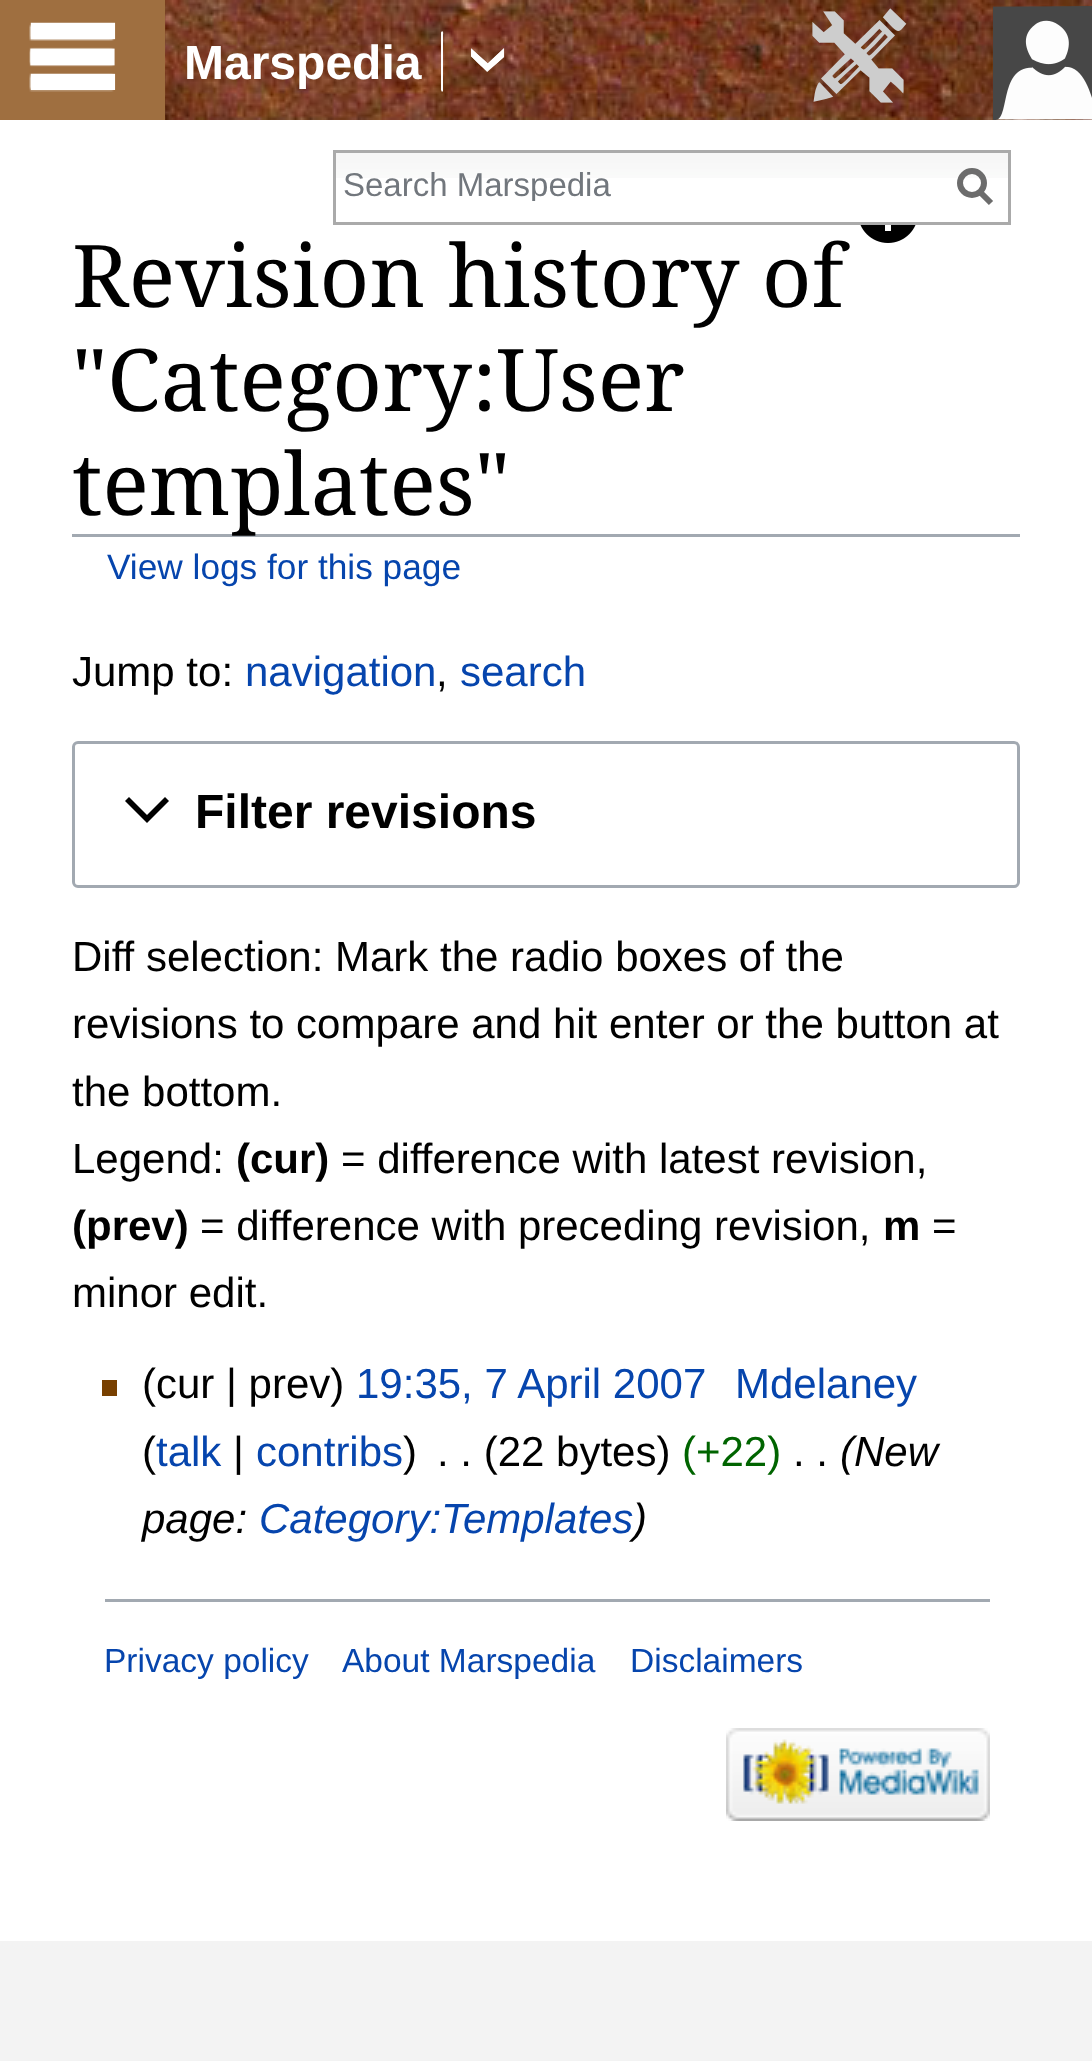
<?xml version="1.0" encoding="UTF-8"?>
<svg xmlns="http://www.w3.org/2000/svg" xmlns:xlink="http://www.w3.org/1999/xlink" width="1092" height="2061">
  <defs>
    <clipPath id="clip1"><rect x="342" y="165" width="564" height="36" /></clipPath>
  </defs>
  <rect width="100%" height="100%" fill="#f3f3f3" />
  <image x="165" y="0" width="927" height="120" xlink:href="image1.png" />
  <rect width="165" height="120" fill="#9f6f40" />
  <image x="29" y="22" width="87" height="70" xlink:href="image2.png" />
  <path d="M 441 62 v -29 c 0 -2 3 -3 2 2 v 56 l -1 1 l -1 -2 v -3 z" fill="#fefefe" />
  <image x="471" y="48" width="34" height="24" xlink:href="image3.png" />
  <image x="812" y="8" width="95" height="95" xlink:href="image4.png" />
  <image x="993" y="6" width="99" height="114" xlink:href="image5.png" />
  <rect y="120" width="1092" height="1821" fill="#ffffff" />
  <image x="336" y="153" width="672" height="25" xlink:href="image6.png" />
  <rect x="334.5" y="151.5" width="675" height="72" fill="none" stroke="#aaaaaa" stroke-width="3" />
  <path d="M 991 203 l -12 -12" fill="none" stroke="#6c6c6c" stroke-width="6" />
  <circle cx="972" cy="183" r="12" fill="none" stroke="#6c6c6c" stroke-width="6" />
  <image x="860" y="225" width="56" height="18" xlink:href="image7.png" />
  <rect x="72" y="534" width="948" height="3" fill="#a2a9b1" />
  <rect x="73.5" y="742.5" width="945" height="144" rx="4.5" fill="none" stroke="#a2a9b1" stroke-width="3" />
  <path d="M 165 797 l -18 18 l -18 -18 l -4 4 l 22 22 l 22 -22 z" fill="#000000" />
  <rect x="102" y="1380" width="15" height="16" fill="#784000" />
  <rect x="105" y="1599" width="885" height="3" fill="#a2a9b1" />
  <image x="726" y="1728" width="264" height="93" xlink:href="image8.png" />
  <text x="184" y="79" style="font-family: Liberation Sans; font-size: 48px; font-weight: bold; fill: #ffffff">Marspedia</text>
  <g clip-path="url(#clip1)">
    <text x="343" y="196" style="font-family: Liberation Sans; font-size: 33px; fill: #72777d">Search Marspedia</text>
  </g>
  <text x="72" y="307" style="font-family: Noto Serif; font-size: 86.5px; fill: #000000">Revision history of</text>
  <text x="72" y="411" style="font-family: Noto Serif; font-size: 86.5px; fill: #000000">"Category:User</text>
  <text x="72" y="515" style="font-family: Noto Serif; font-size: 86.5px; fill: #000000">templates"</text>
  <text x="107" y="579" style="font-family: Liberation Sans; font-size: 35.25px; fill: #0645ad">View logs for this page</text>
  <text x="72" y="686" style="font-family: Liberation Sans; font-size: 42px; fill: #000000">Jump to:</text>
  <text x="245" y="686" style="font-family: Liberation Sans; font-size: 42px; fill: #0645ad">navigation</text>
  <text x="436" y="686" style="font-family: Liberation Sans; font-size: 42px; fill: #000000">,</text>
  <text x="460" y="686" style="font-family: Liberation Sans; font-size: 42px; fill: #0645ad">search</text>
  <text x="195" y="828" style="font-family: Liberation Sans; font-size: 48px; font-weight: bold; fill: #000000">Filter revisions</text>
  <text x="72" y="971" style="font-family: Liberation Sans; font-size: 42px; fill: #000000">Diff selection: Mark the radio boxes of the</text>
  <text x="72" y="1038" style="font-family: Liberation Sans; font-size: 42px; fill: #000000">revisions to compare and hit enter or the button at</text>
  <text x="72" y="1106" style="font-family: Liberation Sans; font-size: 42px; fill: #000000">the bottom.</text>
  <text x="72" y="1173" style="font-family: Liberation Sans; font-size: 42px; fill: #000000">Legend:</text>
  <text x="236" y="1173" style="font-family: Liberation Sans; font-size: 42px; font-weight: bold; fill: #000000">(cur)</text>
  <text x="341" y="1173" style="font-family: Liberation Sans; font-size: 42px; fill: #000000">= difference with latest revision,</text>
  <text x="72" y="1240" style="font-family: Liberation Sans; font-size: 42px; font-weight: bold; fill: #000000">(prev)</text>
  <text x="200" y="1240" style="font-family: Liberation Sans; font-size: 42px; fill: #000000">= difference with preceding revision,</text>
  <text x="883" y="1240" style="font-family: Liberation Sans; font-size: 42px; font-weight: bold; fill: #000000">m</text>
  <text x="932" y="1240" style="font-family: Liberation Sans; font-size: 42px; fill: #000000">=</text>
  <text x="72" y="1307" style="font-family: Liberation Sans; font-size: 42px; fill: #000000">minor edit.</text>
  <text x="142" y="1398" style="font-family: Liberation Sans; font-size: 42px; fill: #000000">(cur | prev)</text>
  <text x="735" y="1398" style="font-family: Liberation Sans; font-size: 42px; fill: #0645ad">Mdelaney</text>
  <text x="142" y="1466" style="font-family: Liberation Sans; font-size: 42px; fill: #000000">(</text>
  <text x="156" y="1466" style="font-family: Liberation Sans; font-size: 42px; fill: #0645ad">talk</text>
  <text x="233" y="1466" style="font-family: Liberation Sans; font-size: 42px; fill: #000000">|</text>
  <text x="256" y="1466" style="font-family: Liberation Sans; font-size: 42px; fill: #0645ad">contribs</text>
  <text x="403" y="1466" style="font-family: Liberation Sans; font-size: 42px; fill: #000000">)</text>
  <text x="356" y="1398" style="font-family: Liberation Sans; font-size: 42px; fill: #0645ad">19:35, 7 April 2007</text>
  <text x="437" y="1466" style="font-family: Liberation Sans; font-size: 42px; fill: #000000">. . (22 bytes)</text>
  <text x="682" y="1466" style="font-family: Liberation Sans; font-size: 42px; fill: #006400">(+22)</text>
  <text x="793" y="1466" style="font-family: Liberation Sans; font-size: 42px; fill: #000000">. .</text>
  <text x="840" y="1466" style="font-family: Liberation Sans; font-size: 42px; font-style: italic; fill: #000000">(New</text>
  <text x="142" y="1533" style="font-family: Liberation Sans; font-size: 42px; font-style: italic; fill: #000000">page:</text>
  <text x="259" y="1533" style="font-family: Liberation Sans; font-size: 42px; font-style: italic; fill: #0645ad">Category:Templates</text>
  <text x="633" y="1533" style="font-family: Liberation Sans; font-size: 42px; font-style: italic; fill: #000000">)</text>
  <text x="104" y="1672" style="font-family: Liberation Sans; font-size: 33.5px; fill: #0645ad">Privacy policy</text>
  <text x="342" y="1672" style="font-family: Liberation Sans; font-size: 33.5px; fill: #0645ad">About Marspedia</text>
  <text x="630" y="1672" style="font-family: Liberation Sans; font-size: 33.5px; fill: #0645ad">Disclaimers</text>
</svg>
